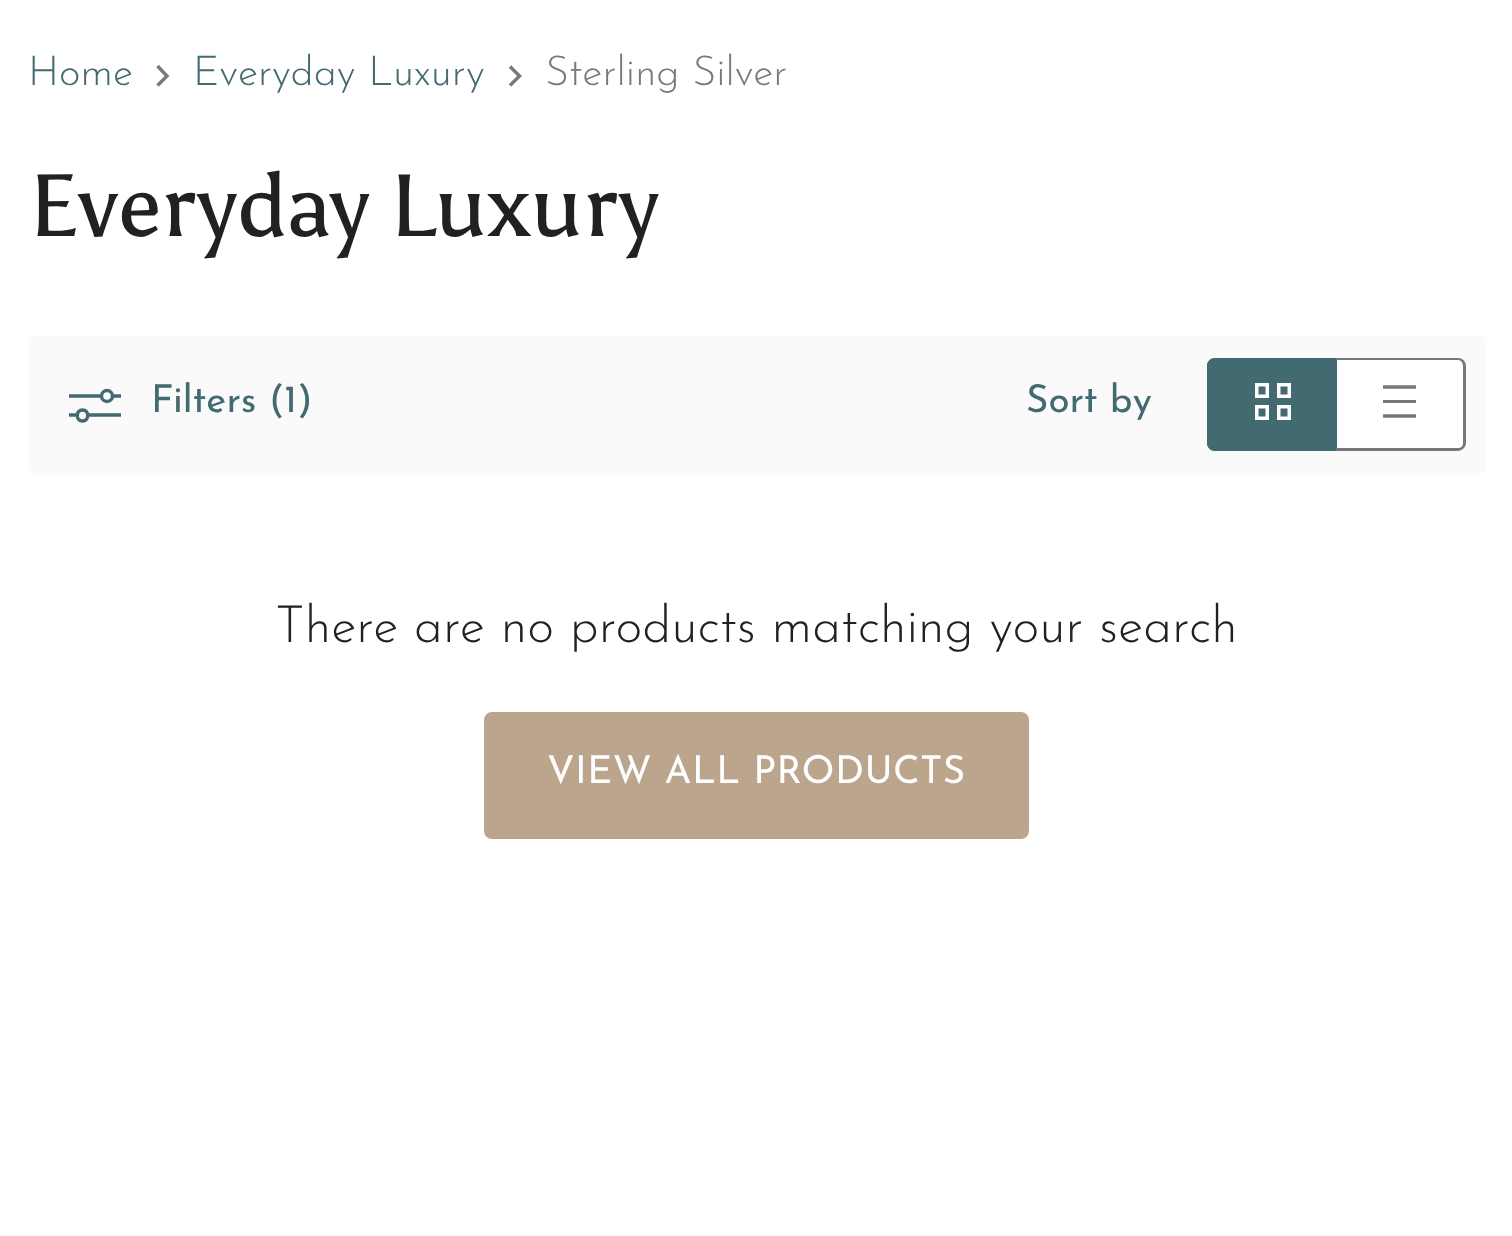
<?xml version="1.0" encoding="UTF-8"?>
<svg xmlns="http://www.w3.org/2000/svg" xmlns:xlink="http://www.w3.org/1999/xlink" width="1512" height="1236">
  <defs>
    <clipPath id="clip1"><path d="M 508 86.5 v -22 h 14 v 22 z" /></clipPath>
  </defs>
  <rect width="100%" height="100%" fill="#ffffff" />
  <path d="M 157.5 85.5 l 9.5 -9.5 l -9.5 -10" fill="none" stroke="#7c7873" stroke-width="3.4" />
  <g clip-path="url(#clip1)">
    <path d="M 510 85.5 l 9.5 -9.5 l -9.5 -9.5" fill="none" stroke="#7c7873" stroke-width="3.4" />
  </g>
  <rect x="28" y="336" width="1457" height="137" rx="4" fill="#fafafa" />
  <circle cx="107" cy="396" r="5.5" fill="none" stroke="#426a70" stroke-width="3.4" />
  <path d="M 69 396 h 33 m 19 0 h -8 m -30.5 14 c -7 0 -7 11 0 11 c 7 0 7 -11 0 -11 z m 38.5 5 h -33 m -19 0 h 8" fill="none" stroke="#426a70" stroke-width="3.4" />
  <path d="M 1215 358 h 122 v 93 h -122 c -4.5 0 -8 -3.5 -8 -8 v -77 c 0 -4.5 3.5 -8 8 -8 z" fill="#426a70" />
  <path d="M 1216 358 h 120 v 93 h -120 c -5 0 -9 -4 -9 -8 v -77 c 0 -5 4 -8 9 -8 z m 0 2 h 120 v 88 h -120 c -4 0 -6 -2 -6 -5 v -77 c 0 -3 2 -6 6 -6 z" fill="#426a70" fill-rule="evenodd" />
  <rect x="1256.75" y="384.75" width="10.5" height="11.5" fill="none" stroke="#ffffff" stroke-width="3.5" />
  <rect x="1278.75" y="384.75" width="10.5" height="11.5" fill="none" stroke="#ffffff" stroke-width="3.5" />
  <rect x="1256.75" y="406.75" width="10.5" height="11.5" fill="none" stroke="#ffffff" stroke-width="3.5" />
  <rect x="1278.75" y="406.75" width="10.5" height="11.5" fill="none" stroke="#ffffff" stroke-width="3.5" />
  <path d="M 1337 358 h 121 c 4.5 0 8 3.5 8 8 v 77 c 0 4.5 -3.5 8 -8 8 h -121 z" fill="#ffffff" />
  <path d="M 1336 358 h 122 c 4 0 8 3 8 8 v 77 c 0 4 -4 8 -8 8 h -122 z m 0 2 h 122 c 3 0 5 3 5 6 v 77 c 0 3 -2 5 -5 5 h -122 z" fill="#777777" fill-rule="evenodd" />
  <path d="M 1383 387 h 33 m -33 29 h 33" fill="none" stroke="#777777" stroke-width="3.4" stroke-linejoin="round" />
  <rect x="1383" y="400" width="33" height="3" fill="#777777" />
  <rect x="485.5" y="713.5" width="542" height="124" rx="6.5" fill="#bca58d" stroke="#bca58d" stroke-width="3" />
  <text x="28" y="85" style="font-family: Josefin Sans; font-size: 41.25px; font-weight: 300; fill: #426a70">Home</text>
  <text x="193" y="85" style="font-family: Josefin Sans; font-size: 41.25px; font-weight: 300; fill: #426a70">Everyday Luxury</text>
  <text x="545" y="85" style="font-family: Josefin Sans; font-size: 41.25px; font-weight: 300; fill: #7c7873">Sterling Silver</text>
  <text x="28" y="236" style="font-family: Asul; font-size: 87.75px; fill: #212121">Everyday Luxury</text>
  <text x="151" y="412" style="font-family: Josefin Sans; font-size: 38.5px; fill: #426a70">Filters (1)</text>
  <text x="1026" y="412" style="font-family: Josefin Sans; font-size: 38.5px; fill: #426a70">Sort by</text>
  <text x="275" y="642" style="font-family: Josefin Sans; font-size: 51.6px; font-weight: 300; fill: #212121">There are no products matching your search</text>
  <text x="547" y="783" style="font-family: Josefin Sans; font-size: 38.5px; letter-spacing: 0.4px; fill: #ffffff">VIEW ALL PRODUCTS</text>
</svg>
